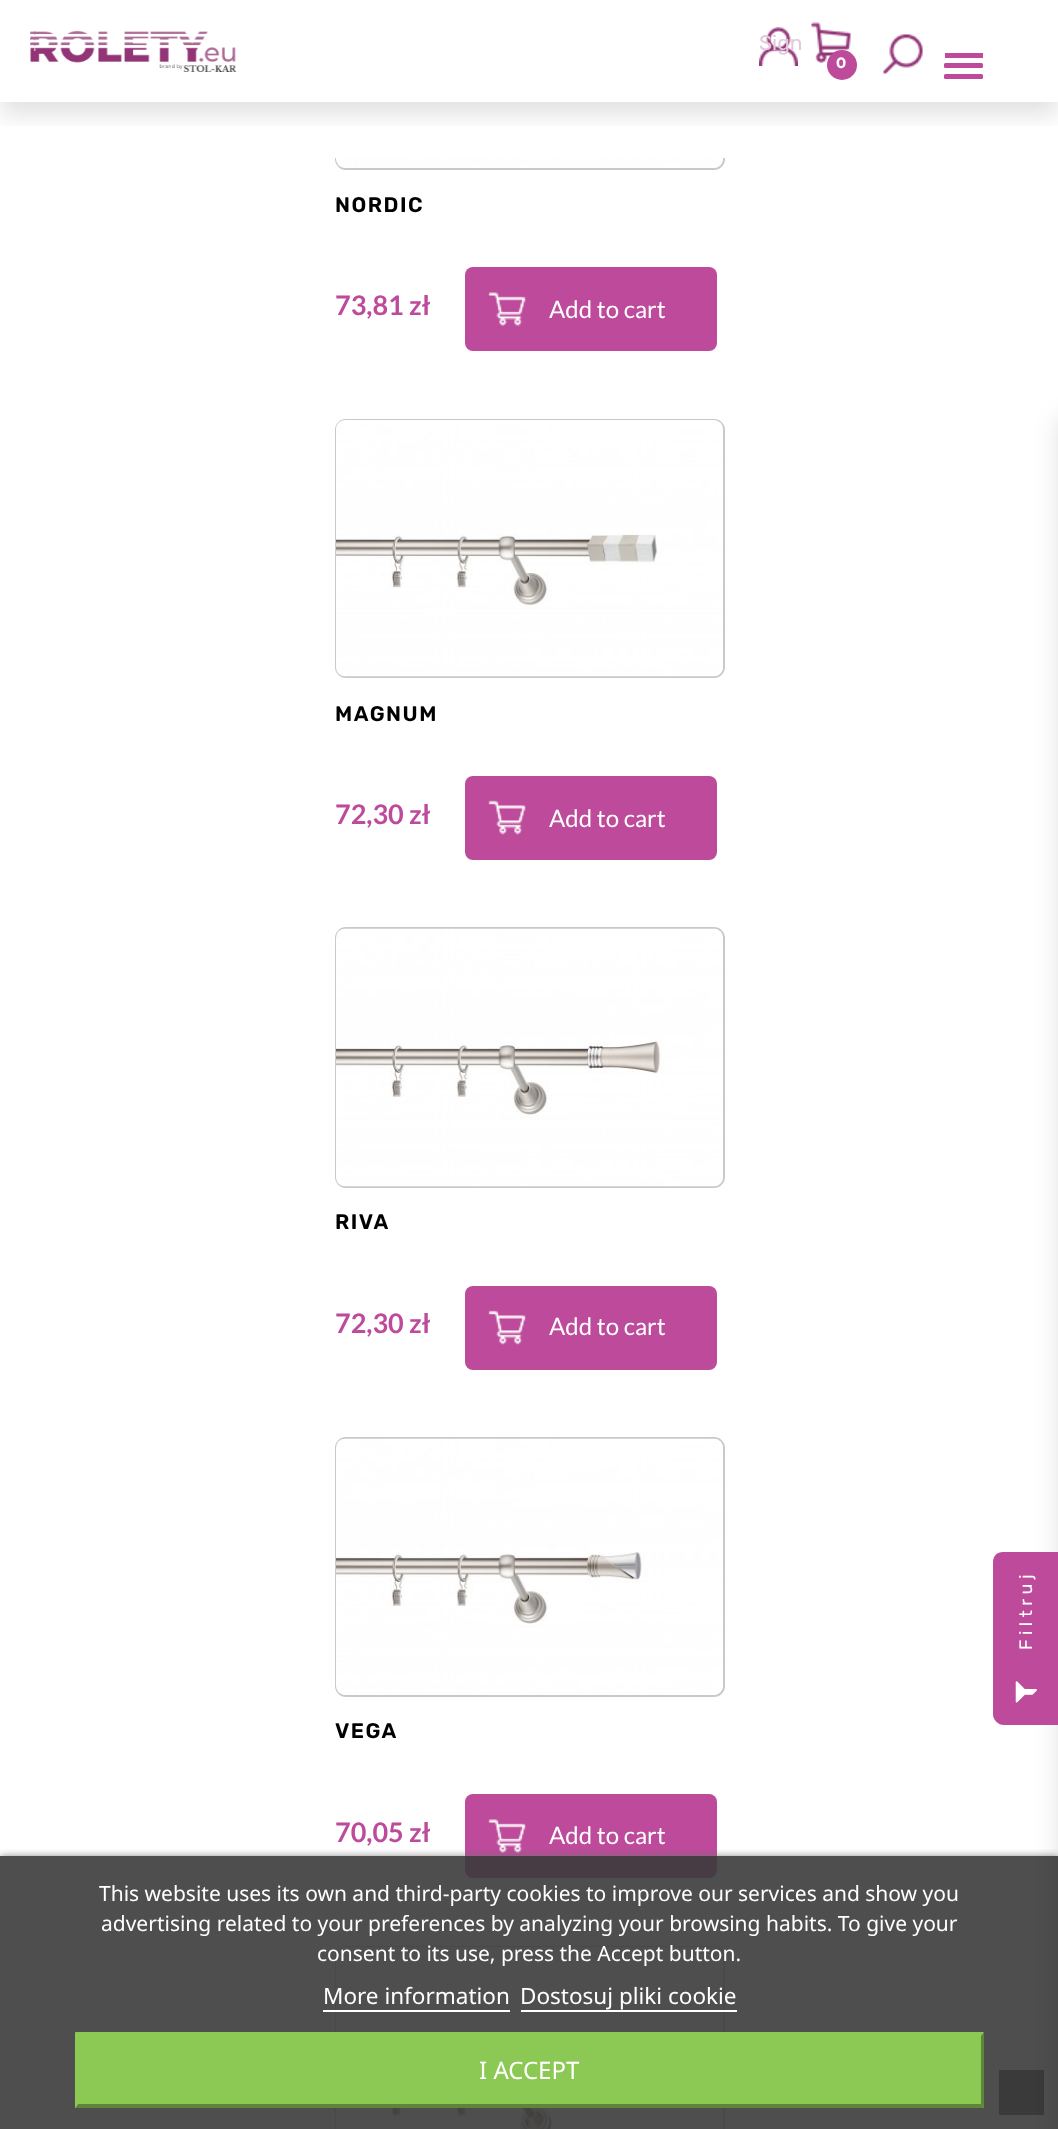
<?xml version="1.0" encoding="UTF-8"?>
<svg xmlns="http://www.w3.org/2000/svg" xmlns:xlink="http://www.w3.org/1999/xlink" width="1058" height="2129">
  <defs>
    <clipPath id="clip1"><rect x="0" y="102" width="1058" height="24" /></clipPath>
    <clipPath id="clip2"><rect x="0" y="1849" width="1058" height="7" /></clipPath>
  </defs>
  <rect width="100%" height="100%" fill="#ffffff" />
  <rect x="336" y="-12" width="388" height="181" rx="10" fill="none" stroke="#c9c9c9" stroke-width="2" />
  <rect x="335" width="390" height="158" fill="#ffffff" />
  <g clip-path="url(#clip1)">
    <rect y="12" width="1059" height="102" fill="#000000" fill-opacity="0.12" filter="blur(12px)" />
  </g>
  <image x="30" y="30" width="207" height="42" xlink:href="image1.png" />
  <image x="759" y="27" width="39" height="39" xlink:href="image2.png" />
  <image x="811" y="22" width="40" height="41" xlink:href="image3.png" />
  <circle cx="842" cy="65" r="15" fill="#bd4a9a" />
  <image x="883" y="34" width="40" height="40" xlink:href="image4.png" />
  <rect x="945" y="53" width="38" height="5" fill="#bd4a9a" />
  <rect x="944" y="63" width="39" height="5" rx="1.5" fill="#bd4a9a" />
  <rect x="944" y="74" width="39" height="5" rx="1.5" fill="#bd4a9a" />
  <image x="336" y="158" width="387" height="10" xlink:href="image5.png" />
  <rect x="465" y="267" width="252" height="84" rx="8" fill="#bd4a9a" />
  <image x="488" y="292" width="38" height="34" xlink:href="image6.png" />
  <rect x="336" y="420" width="388" height="257" rx="10" fill="none" stroke="#c9c9c9" stroke-width="2" />
  <image x="336" y="420" width="387" height="257" xlink:href="image7.png" />
  <rect x="465" y="776" width="252" height="84" rx="8" fill="#bd4a9a" />
  <image x="488" y="800" width="38" height="35" xlink:href="image8.png" />
  <rect x="336" y="928" width="388" height="259" rx="10" fill="none" stroke="#c9c9c9" stroke-width="2" />
  <image x="336" y="928" width="387" height="259" xlink:href="image9.png" />
  <rect x="465" y="1286" width="252" height="84" rx="8" fill="#bd4a9a" />
  <image x="488" y="1310" width="38" height="35" xlink:href="image8.png" />
  <rect x="336" y="1438" width="388" height="258" rx="10" fill="none" stroke="#c9c9c9" stroke-width="2" />
  <image x="336" y="1438" width="387" height="257" xlink:href="image10.png" />
  <rect x="465" y="1794" width="252" height="84" rx="8" fill="#bd4a9a" />
  <image x="488" y="1819" width="38" height="34" xlink:href="image6.png" />
  <rect x="336" y="1947" width="388" height="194" rx="10" fill="none" stroke="#c9c9c9" stroke-width="2" />
  <image x="336" y="1947" width="387" height="182" xlink:href="image11.png" />
  <rect x="999" y="2070" width="45" height="45" fill="#333333" />
  <image x="1011" y="2087" width="20" height="12" xlink:href="image12.png" />
  <g clip-path="url(#clip2)">
    <rect y="1857" width="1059" height="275" fill="#707070" filter="blur(4px)" />
  </g>
  <rect y="1856" width="1058" height="273" fill="#3b3b3b" fill-opacity="0.9" />
  <rect x="323" y="2010" width="187" height="2" fill="#ffffff" />
  <rect x="521" y="2010" width="216" height="2" fill="#ffffff" />
  <rect x="75" y="2033" width="909" height="75" fill="#8bc954" />
  <path d="M 75 2032 h 909 l -3 4 h -903 z" fill="#8bc954" />
  <path d="M 984 2032 v 76 l -3 -4 v -68 z" fill="#5d8638" />
  <path d="M 984 2108 h -909 l 3 -4 h 903 z" fill="#5d8638" />
  <path d="M 75 2108 v -76 l 3 4 v 68 z" fill="#8bc954" />
  <rect x="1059" y="417" width="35" height="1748" fill="#000000" fill-opacity="0.12" filter="blur(12px)" />
  <path d="M 993 1659 h 55 c 6 0 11 5 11 11 v 55 h -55 c -6 0 -11 -5 -11 -11 z" fill="#bd4a9a" />
  <path d="M 993 1668 v -106 c 0 -6 4 -10 10 -10 h 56 v 116 z" fill="#bd4a9a" />
  <image x="1015" y="1681" width="22" height="22" xlink:href="image13.png" />
  <text x="759" y="50" style="font-family: Rubik; font-size: 21px; fill: #e2cadb">Sign</text>
  <text x="836" y="68" style="font-family: Montserrat; font-size: 15px; font-weight: bold; fill: #ffffff">0</text>
  <text x="335" y="212" style="font-family: Rubik; font-size: 21px; font-weight: 600; letter-spacing: 1.5px; fill: #000000">NORDIC</text>
  <text x="335" y="315" style="font-family: Lato; font-size: 27px; font-weight: bold; fill: #bd4a9a">73,81 zł</text>
  <text x="549" y="318" style="font-family: Lato; font-size: 24px; fill: #ffffff">Add to cart</text>
  <text x="335" y="721" style="font-family: Rubik; font-size: 21px; font-weight: 600; letter-spacing: 1.5px; fill: #000000">MAGNUM</text>
  <text x="335" y="824" style="font-family: Lato; font-size: 27px; font-weight: bold; fill: #bd4a9a">72,30 zł</text>
  <text x="549" y="827" style="font-family: Lato; font-size: 24px; fill: #ffffff">Add to cart</text>
  <text x="335" y="1229" style="font-family: Rubik; font-size: 21px; font-weight: 600; letter-spacing: 1.5px; fill: #000000">RIVA</text>
  <text x="335" y="1333" style="font-family: Lato; font-size: 27px; font-weight: bold; fill: #bd4a9a">72,30 zł</text>
  <text x="549" y="1335" style="font-family: Lato; font-size: 24px; fill: #ffffff">Add to cart</text>
  <text x="335" y="1738" style="font-family: Rubik; font-size: 21px; font-weight: 600; letter-spacing: 1.5px; fill: #000000">VEGA</text>
  <text x="335" y="1842" style="font-family: Lato; font-size: 27px; font-weight: bold; fill: #bd4a9a">70,05 zł</text>
  <text x="549" y="1844" style="font-family: Lato; font-size: 24px; fill: #ffffff">Add to cart</text>
  <text x="99" y="1901" style="font-family: Noto Sans; font-size: 21px; fill: #ffffff">This website uses its own and third-party cookies to improve our services and show you</text>
  <text x="101" y="1931" style="font-family: Noto Sans; font-size: 21px; fill: #ffffff">advertising related to your preferences by analyzing your browsing habits. To give your</text>
  <text x="317" y="1961" style="font-family: Noto Sans; font-size: 21px; fill: #ffffff">consent to its use, press the Accept button.</text>
  <text x="323" y="2004" style="font-family: Noto Sans; font-size: 22.5px; fill: #ffffff">More information</text>
  <text x="520" y="2004" style="font-family: Noto Sans; font-size: 22.5px; fill: #ffffff">Dostosuj pliki cookie</text>
  <text x="479" y="2079" style="font-family: Noto Sans; font-size: 24px; fill: #ffffff">I ACCEPT</text>
  <text x="1032" y="1650" transform="rotate(-90 1032 1650)" style="font-family: Rubik; font-size: 18px; letter-spacing: 4.5px; fill: #ffffff">Filtruj</text>
</svg>
